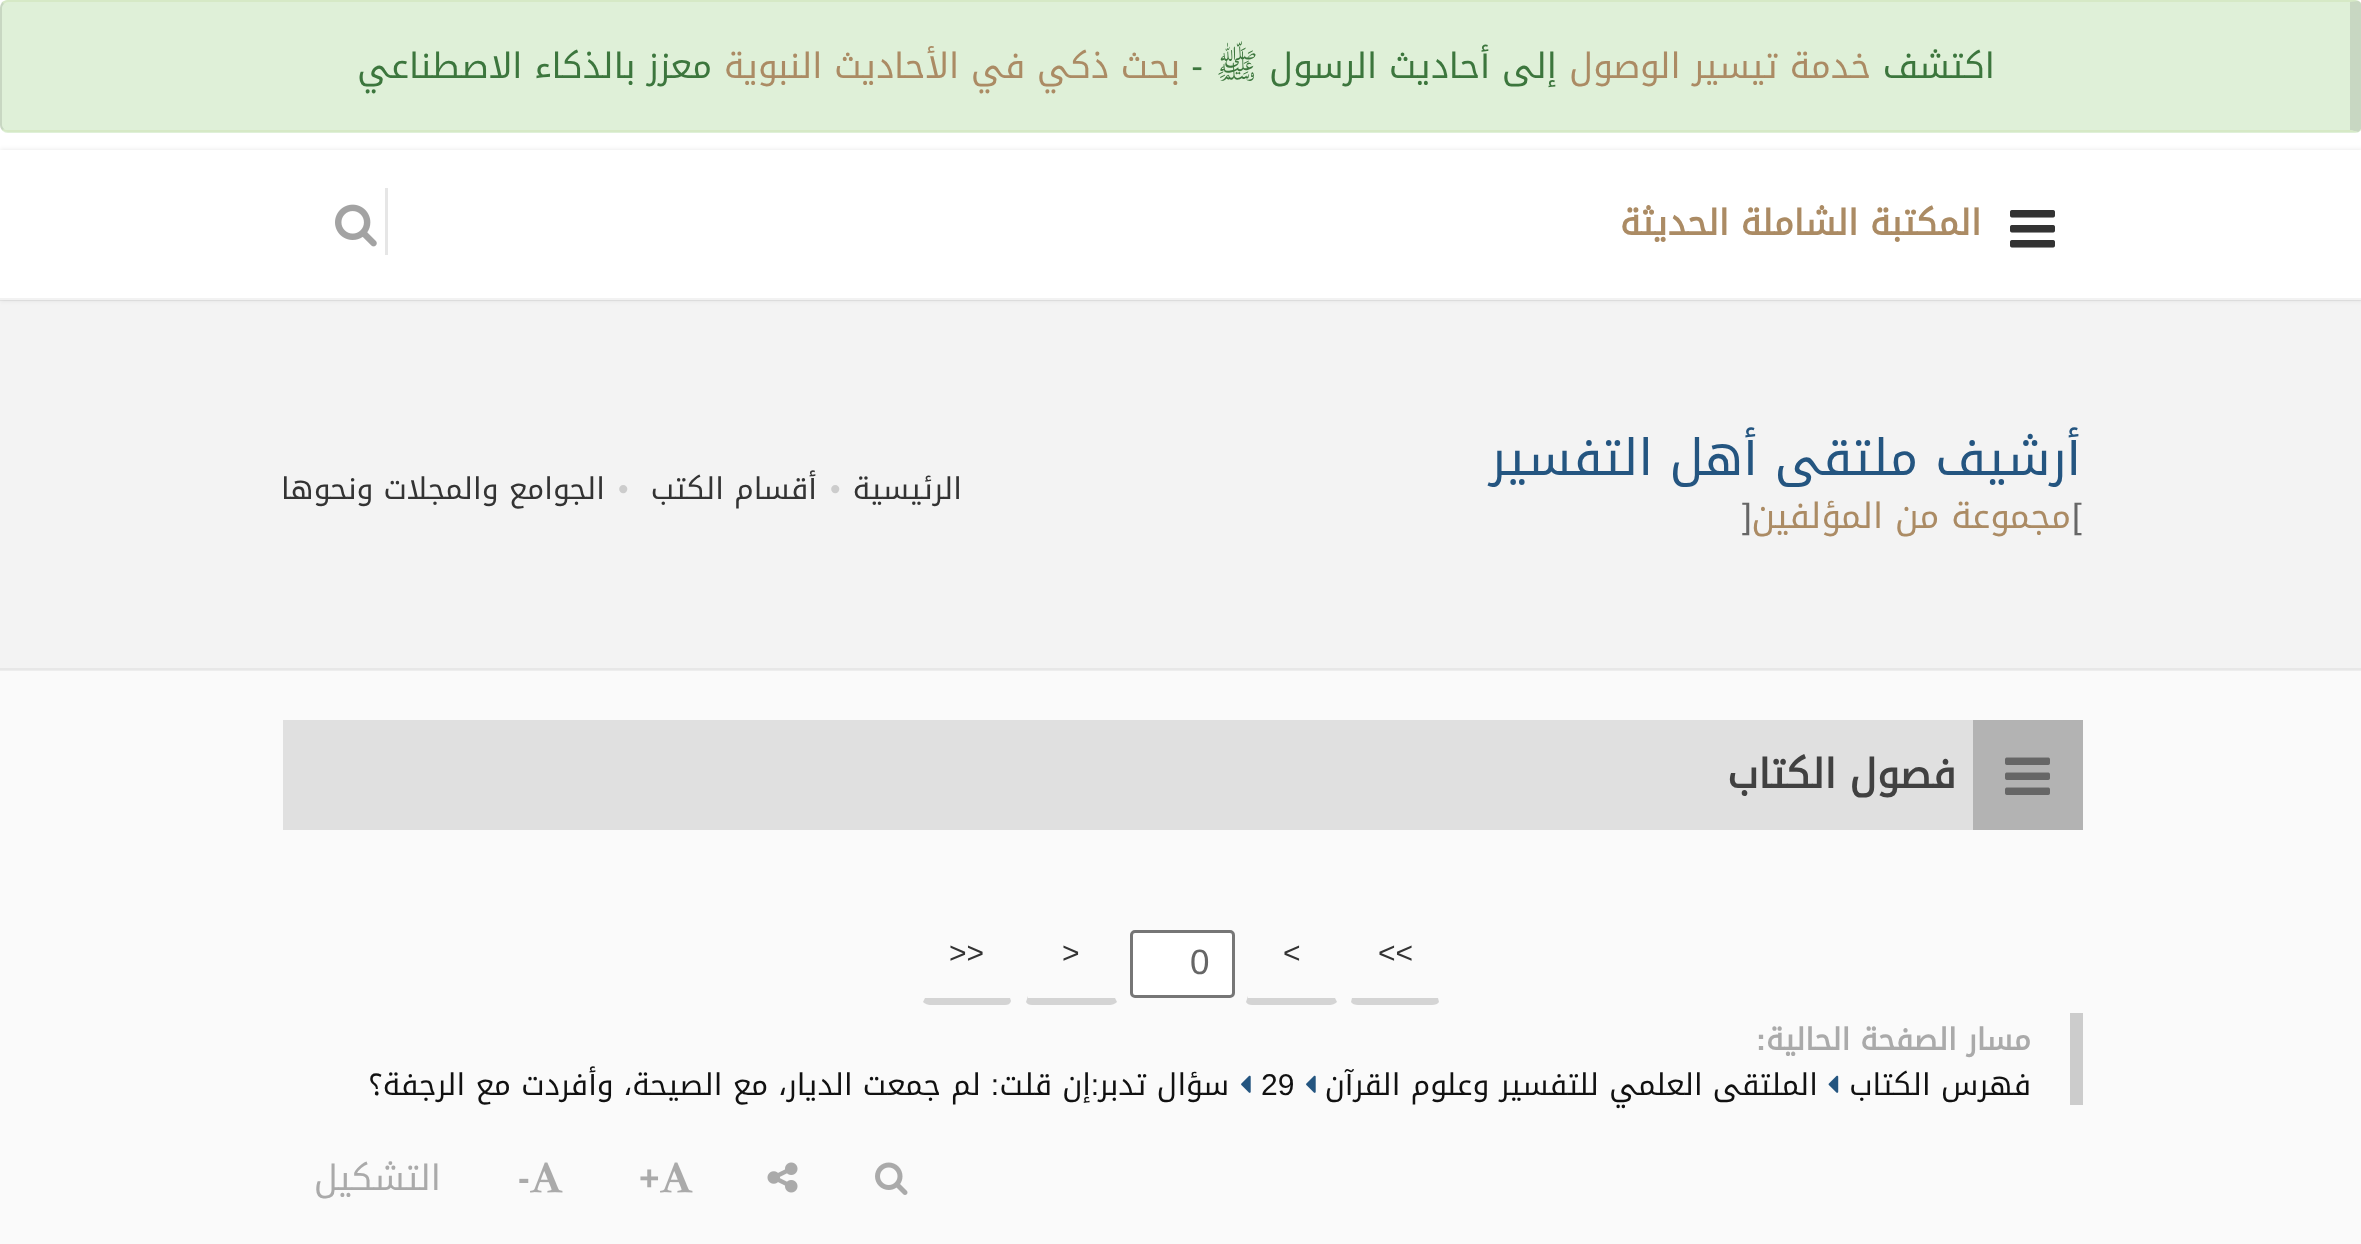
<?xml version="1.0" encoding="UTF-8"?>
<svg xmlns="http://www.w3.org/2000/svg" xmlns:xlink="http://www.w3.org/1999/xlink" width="2361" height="1244">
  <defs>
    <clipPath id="clip1"><path d="M 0 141 h 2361 v 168 h -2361 z m 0 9 h 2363 v 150 h -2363 z" clip-rule="evenodd" /></clipPath>
  </defs>
  <rect width="100%" height="100%" fill="#ffffff" />
  <rect y="671" width="2361" height="573" fill="#fafafa" />
  <rect y="670" width="2361" height="1" fill="#ededed" />
  <rect width="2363" height="133" rx="8" fill="#dff0d8" />
  <path d="M 8 0 c -2 0 -4 1 -6 2 l 2 2 c 1 -1 2 -2 4 -2 h 2342 l 8 -1 l -3 -1 z" fill="#d6e9c6" />
  <path d="M 2358 1 c 3 1 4 4 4 7 v 117 c 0 3 -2 6 -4 7 l -8 -2 v -128 z" fill="#000000" fill-opacity="0.1" />
  <path d="M 2358 132 h -3 h -2347 c -2 0 -4 -1 -6 -2 l 2 -1 c 1 1 2 1 4 1 h 2342 z" fill="#d6e9c6" />
  <path d="M 0 8 v 117 c 0 2 1 4 2 5 l 2 -1 c -1 -1 -2 -3 -2 -4 v -117 c 0 -2 1 -3 2 -4 l -2 -2 c -1 2 -2 4 -2 6 z" fill="#000000" fill-opacity="0.1" />
  <rect y="300" width="2361" height="368" fill="#f3f3f3" />
  <g clip-path="url(#clip1)">
    <rect y="150" width="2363" height="150" fill="#000000" fill-opacity="0.1" filter="blur(2.5px)" />
  </g>
  <rect y="298" width="2361" height="3" fill="#000000" fill-opacity="0.05" />
  <image x="2010" y="210" width="45" height="38" xlink:href="image1.png" />
  <rect x="385" y="188" width="3" height="67" fill="#e6e6e6" />
  <image x="335" y="204" width="42" height="43" xlink:href="image2.png" />
  <rect y="668" width="2361" height="2" fill="#e7e7e7" />
  <rect x="283" y="720" width="1690" height="110" fill="#e0e0e0" />
  <rect x="1973" y="720" width="110" height="110" fill="#b3b3b3" />
  <image x="2005" y="757" width="45" height="38" xlink:href="image3.png" />
  <path d="M 1358 1005 h 74 c 3 0 6 -1 7 -3 l -1 -4 h -86 l -1 4 c 1 2 4 3 7 3 z" fill="#d4d4d4" />
  <path d="M 1252 1005 h 78 c 2 0 5 -1 7 -3 l -2 -4 h -87 v -2 l -2 6 c 1 2 3 3 6 3 z" fill="#d4d4d4" />
  <rect x="1131.5" y="931.5" width="102" height="65" rx="3.5" fill="#ffffff" stroke="#767676" stroke-width="3" />
  <path d="M 1032 1005 h 78 c 2 0 5 -1 7 -3 l -2 -4 h -87 v -2 l -2 6 c 1 2 3 3 6 3 z" fill="#d4d4d4" />
  <path d="M 930 1005 h 75 c 3 0 5 -1 6 -4 l -1 -3 h -85 l -2 4 c 2 2 5 3 7 3 z" fill="#d4d4d4" />
  <rect x="2070" y="1013" width="13" height="92" fill="#cccccc" />
  <image x="1828" y="1075" width="11" height="18" xlink:href="image4.png" />
  <image x="1306" y="1075" width="10" height="18" xlink:href="image5.png" />
  <image x="1241" y="1075" width="10" height="18" xlink:href="image5.png" />
  <image x="875" y="1162" width="33" height="33" xlink:href="image6.png" />
  <image x="767" y="1162" width="31" height="31" xlink:href="image7.png" />
  <image x="660" y="1162" width="33" height="31" xlink:href="image8.png" />
  <image x="530" y="1162" width="33" height="31" xlink:href="image8.png" />
  <text x="1995" y="78" style="font-family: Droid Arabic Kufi; font-size: 35px; direction: rtl; fill: #3c763d">اكتشف</text>
  <text x="1871" y="78" style="font-family: Droid Arabic Kufi; font-size: 35px; direction: rtl; fill: #ab8b64">خدمة تيسير الوصول</text>
  <text x="1557" y="78" style="font-family: Droid Arabic Kufi; font-size: 35px; direction: rtl; fill: #3c763d">إلى أحاديث الرسول</text>
  <text x="1258" y="78" style="font-family: Lateef; font-size: 35px; direction: rtl; fill: #3c763d">ﷺ</text>
  <text x="1203" y="78" style="font-family: Liberation Sans; font-size: 35px; direction: rtl; fill: #3c763d">-</text>
  <text x="1180" y="78" style="font-family: Droid Arabic Kufi; font-size: 35px; direction: rtl; fill: #ab8b64">بحث ذكي في الأحاديث النبوية</text>
  <text x="712" y="78" style="font-family: Droid Arabic Kufi; font-size: 35px; direction: rtl; fill: #3c763d">معزز بالذكاء الاصطناعي</text>
  <text x="1981" y="235" style="font-family: Droid Arabic Kufi; font-size: 35px; font-weight: bold; direction: rtl; fill: #ab8b64">المكتبة الشاملة الحديثة</text>
  <text x="2081" y="475" style="font-family: Droid Arabic Kufi; font-size: 50px; direction: rtl; fill: #245580">أرشيف ملتقى أهل التفسير</text>
  <text x="962" y="499" style="font-family: Droid Arabic Kufi; font-size: 30px; direction: rtl; fill: #333333">الرئيسية</text>
  <text x="830" y="499" style="font-family: Liberation Sans; font-size: 30px; fill: #cccccc">•</text>
  <text x="817" y="499" style="font-family: Droid Arabic Kufi; font-size: 30px; direction: rtl; fill: #333333">أقسام الكتب</text>
  <text x="618" y="499" style="font-family: Liberation Sans; font-size: 30px; fill: #cccccc">•</text>
  <text x="605" y="499" style="font-family: Droid Arabic Kufi; font-size: 30px; direction: rtl; fill: #333333">الجوامع والمجلات ونحوها</text>
  <text x="2072" y="528" style="font-family: Liberation Sans; font-size: 35px; fill: #666666">[</text>
  <text x="2071" y="528" style="font-family: Droid Arabic Kufi; font-size: 35px; direction: rtl; fill: #ab8b64">مجموعة من المؤلفين</text>
  <text x="1742" y="528" style="font-family: Liberation Sans; font-size: 35px; fill: #666666">]</text>
  <text x="1956" y="788" style="font-family: Droid Arabic Kufi; font-size: 40px; font-weight: bold; direction: rtl; fill: #414141">فصول الكتاب</text>
  <text x="1378" y="963" style="font-family: Liberation Sans; font-size: 30px; fill: #333333">&lt;&lt;</text>
  <text x="1283" y="963" style="font-family: Liberation Sans; font-size: 30px; fill: #333333">&lt;</text>
  <text x="1190" y="974" style="font-family: Liberation Sans; font-size: 35px; fill: #666666">0</text>
  <text x="1062" y="963" style="font-family: Liberation Sans; font-size: 30px; fill: #333333">&gt;</text>
  <text x="949" y="963" style="font-family: Liberation Sans; font-size: 30px; fill: #333333">&gt;&gt;</text>
  <text x="2031" y="1050" style="font-family: Droid Arabic Kufi; font-size: 30px; font-weight: bold; direction: rtl; fill: #aaaaaa">مسار الصفحة الحالية</text>
  <text x="1766" y="1050" style="font-family: Liberation Sans; font-size: 30px; font-weight: bold; direction: rtl; fill: #aaaaaa">:</text>
  <text x="2031" y="1095" style="font-family: Droid Arabic Kufi; font-size: 30px; direction: rtl; fill: #111111">فهرس الكتاب</text>
  <text x="1818" y="1095" style="font-family: Droid Arabic Kufi; font-size: 30px; direction: rtl; fill: #111111">الملتقى العلمي للتفسير وعلوم القرآن</text>
  <text x="1261" y="1095" style="font-family: Liberation Sans; font-size: 30px; fill: #111111">29</text>
  <text x="1229" y="1095" style="font-family: Droid Arabic Kufi; font-size: 30px; direction: rtl; fill: #111111">سؤال تدبر</text>
  <text x="1099" y="1095" style="font-family: Liberation Sans; font-size: 30px; direction: rtl; fill: #111111">:</text>
  <text x="1091" y="1095" style="font-family: Droid Arabic Kufi; font-size: 30px; direction: rtl; fill: #111111">إن قلت</text>
  <text x="999" y="1095" style="font-family: Liberation Sans; font-size: 30px; direction: rtl; fill: #111111">:</text>
  <text x="981" y="1095" style="font-family: Droid Arabic Kufi; font-size: 30px; direction: rtl; fill: #111111">لم جمعت الديار، مع الصيحة، وأفردت مع الرجفة؟</text>
  <text x="639" y="1190" style="font-family: Liberation Sans; font-size: 35px; font-weight: bold; fill: #aaaaaa">+</text>
  <text x="518" y="1190" style="font-family: Liberation Sans; font-size: 35px; font-weight: bold; fill: #aaaaaa">-</text>
  <text x="441" y="1190" style="font-family: Droid Arabic Kufi; font-size: 35px; direction: rtl; fill: #aaaaaa">التشكيل</text>
</svg>
